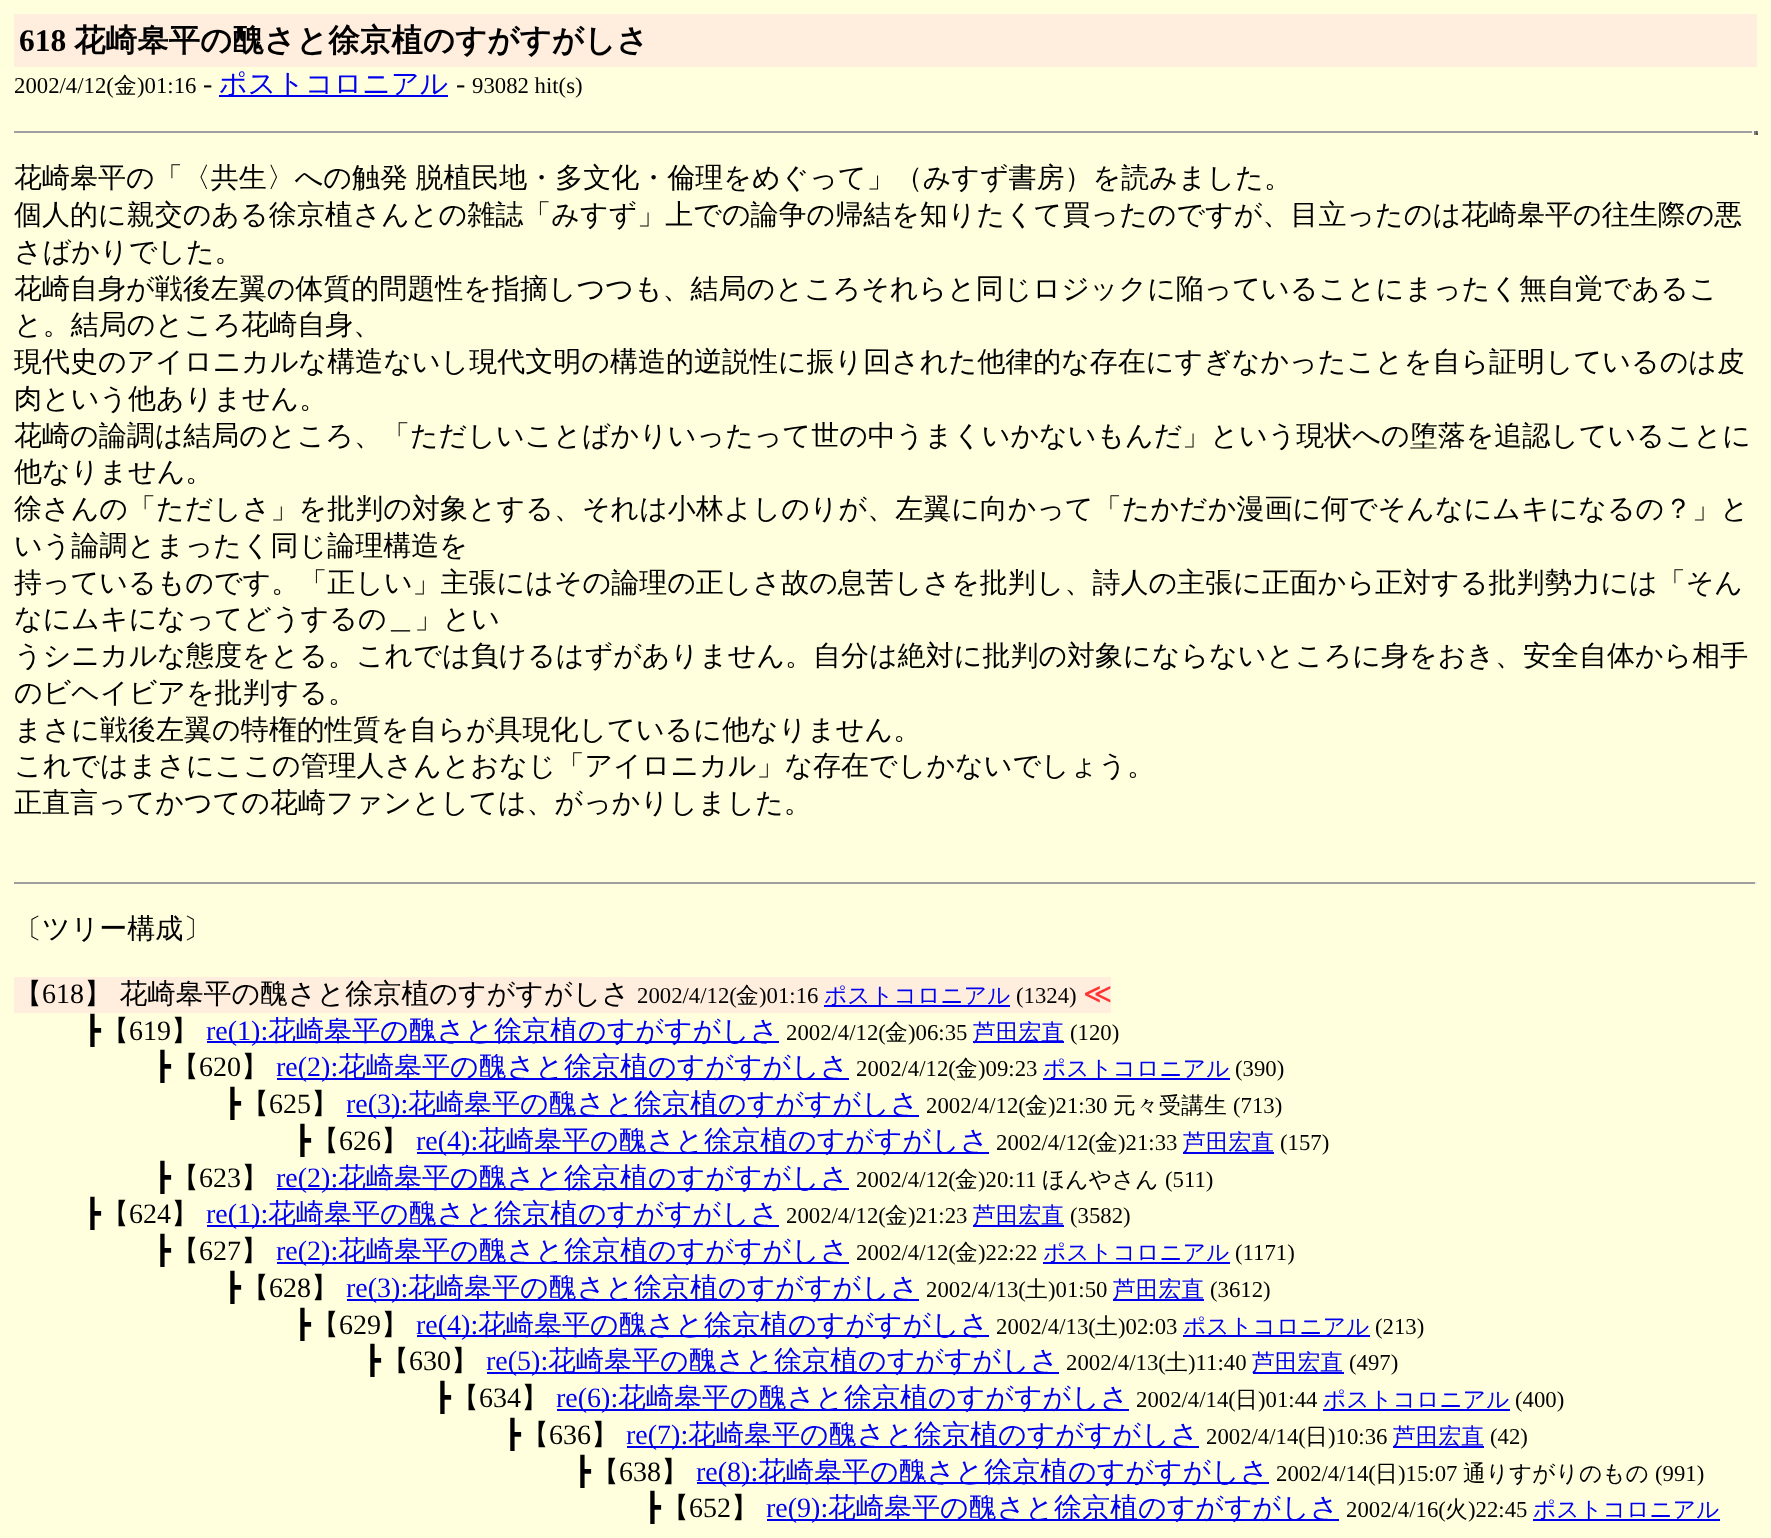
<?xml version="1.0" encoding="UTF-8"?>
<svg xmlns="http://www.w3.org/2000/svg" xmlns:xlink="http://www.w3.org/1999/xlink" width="1771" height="1538">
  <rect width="100%" height="100%" fill="#ffffdd" />
  <rect x="14" y="14" width="1743" height="53" fill="#ffeedd" />
  <rect x="219" y="95" width="229" height="2" fill="#0000ee" />
  <rect x="14" y="131" width="1740" height="2" fill="#9f9f9f" />
  <rect x="1752" y="131" width="2" height="2" fill="#eeeeee" />
  <rect x="1754" y="131" width="4" height="2" fill="#808080" />
  <rect x="1756" y="131" width="1" height="4" fill="#555555" />
  <rect x="1754" y="133" width="4" height="2" fill="#555555" />
  <rect x="1754" y="131" width="2" height="4" fill="#808080" />
  <rect x="14" y="882" width="1743" height="2" fill="#9f9f9f" />
  <rect x="1755" y="882" width="2" height="2" fill="#eeeeee" />
  <rect x="14" y="977" width="1097" height="36" fill="#ffeedd" />
  <rect x="824" y="1005" width="186" height="2" fill="#0000ee" />
  <rect x="207" y="1041" width="572" height="2" fill="#0000ee" />
  <rect x="973" y="1041" width="91" height="2" fill="#0000ee" />
  <rect x="277" y="1078" width="572" height="2" fill="#0000ee" />
  <rect x="1043" y="1078" width="187" height="2" fill="#0000ee" />
  <rect x="347" y="1115" width="572" height="2" fill="#0000ee" />
  <rect x="417" y="1152" width="572" height="2" fill="#0000ee" />
  <rect x="1183" y="1152" width="91" height="2" fill="#0000ee" />
  <rect x="277" y="1188" width="572" height="2" fill="#0000ee" />
  <rect x="207" y="1225" width="572" height="2" fill="#0000ee" />
  <rect x="973" y="1225" width="91" height="2" fill="#0000ee" />
  <rect x="277" y="1262" width="572" height="2" fill="#0000ee" />
  <rect x="1043" y="1262" width="187" height="2" fill="#0000ee" />
  <rect x="347" y="1299" width="572" height="2" fill="#0000ee" />
  <rect x="1113" y="1299" width="91" height="2" fill="#0000ee" />
  <rect x="417" y="1335" width="572" height="2" fill="#0000ee" />
  <rect x="1183" y="1335" width="187" height="2" fill="#0000ee" />
  <rect x="487" y="1372" width="572" height="2" fill="#0000ee" />
  <rect x="1253" y="1372" width="91" height="2" fill="#0000ee" />
  <rect x="557" y="1409" width="572" height="2" fill="#0000ee" />
  <rect x="1323" y="1409" width="187" height="2" fill="#0000ee" />
  <rect x="627" y="1446" width="572" height="2" fill="#0000ee" />
  <rect x="1393" y="1446" width="91" height="2" fill="#0000ee" />
  <rect x="697" y="1482" width="572" height="2" fill="#0000ee" />
  <rect x="767" y="1519" width="572" height="2" fill="#0000ee" />
  <rect x="1533" y="1519" width="187" height="2" fill="#0000ee" />
  <text x="19" y="51" style="font-family: Liberation Serif; font-size: 31.5px; font-weight: bold; fill: #000000">618</text>
  <text x="74" y="51" style="font-family: WenQuanYi Zen Hei; font-size: 31.5px; font-weight: bold; fill: #000000">花崎皋平の醜さと徐京植のすがすがしさ</text>
  <text x="14" y="93" style="font-family: Liberation Serif; font-size: 22.75px; fill: #000000">2002/4/12(</text>
  <text x="114" y="93" style="font-family: WenQuanYi Zen Hei; font-size: 22.75px; font-weight: 500; fill: #000000">金</text>
  <text x="137" y="93" style="font-family: Liberation Serif; font-size: 22.75px; fill: #000000">)01:16</text>
  <text x="203" y="93" style="font-family: Liberation Serif; font-size: 28px; fill: #000000">-</text>
  <text x="219" y="93" style="font-family: WenQuanYi Zen Hei; font-size: 28px; font-weight: 500; fill: #0000ee">ポストコロニアル</text>
  <text x="456" y="93" style="font-family: Liberation Serif; font-size: 28px; fill: #000000">-</text>
  <text x="472" y="93" style="font-family: Liberation Serif; font-size: 22.75px; fill: #000000">93082 hit(s)</text>
  <text x="14" y="187" word-spacing="-1" style="font-family: WenQuanYi Zen Hei; font-size: 28px; font-weight: 500; fill: #000000">花崎皋平の「〈共生〉への触発 脱植民地・多文化・倫理をめぐって」（みすず書房）を読みました。</text>
  <text x="14" y="224" style="font-family: WenQuanYi Zen Hei; font-size: 28px; font-weight: 500; fill: #000000">個人的に親交のある徐京植さんとの雑誌「みすず」上での論争の帰結を知りたくて買ったのですが、目立ったのは花崎皋平の往生際の悪</text>
  <text x="14" y="261" style="font-family: WenQuanYi Zen Hei; font-size: 28px; font-weight: 500; fill: #000000">さばかりでした。</text>
  <text x="14" y="298" style="font-family: WenQuanYi Zen Hei; font-size: 28px; font-weight: 500; fill: #000000">花崎自身が戦後左翼の体質的問題性を指摘しつつも、結局のところそれらと同じロジックに陥っていることにまったく無自覚であるこ</text>
  <text x="14" y="334" style="font-family: WenQuanYi Zen Hei; font-size: 28px; font-weight: 500; fill: #000000">と。結局のところ花崎自身、</text>
  <text x="14" y="371" style="font-family: WenQuanYi Zen Hei; font-size: 28px; font-weight: 500; fill: #000000">現代史のアイロニカルな構造ないし現代文明の構造的逆説性に振り回された他律的な存在にすぎなかったことを自ら証明しているのは皮</text>
  <text x="14" y="408" style="font-family: WenQuanYi Zen Hei; font-size: 28px; font-weight: 500; fill: #000000">肉という他ありません。</text>
  <text x="14" y="445" style="font-family: WenQuanYi Zen Hei; font-size: 28px; font-weight: 500; fill: #000000">花崎の論調は結局のところ、「ただしいことばかりいったって世の中うまくいかないもんだ」という現状への堕落を追認していることに</text>
  <text x="14" y="481" style="font-family: WenQuanYi Zen Hei; font-size: 28px; font-weight: 500; fill: #000000">他なりません。</text>
  <text x="14" y="518" style="font-family: WenQuanYi Zen Hei; font-size: 28px; font-weight: 500; fill: #000000">徐さんの「ただしさ」を批判の対象とする、それは小林よしのりが、左翼に向かって「たかだか漫画に何でそんなにムキになるの？」と</text>
  <text x="14" y="555" style="font-family: WenQuanYi Zen Hei; font-size: 28px; font-weight: 500; fill: #000000">いう論調とまったく同じ論理構造を</text>
  <text x="14" y="592" style="font-family: WenQuanYi Zen Hei; font-size: 28px; font-weight: 500; fill: #000000">持っているものです。「正しい」主張にはその論理の正しさ故の息苦しさを批判し、詩人の主張に正面から正対する批判勢力には「そん</text>
  <text x="14" y="628" style="font-family: WenQuanYi Zen Hei; font-size: 28px; font-weight: 500; fill: #000000">なにムキになってどうするの＿」とい</text>
  <text x="14" y="665" style="font-family: WenQuanYi Zen Hei; font-size: 28px; font-weight: 500; fill: #000000">うシニカルな態度をとる。これでは負けるはずがありません。自分は絶対に批判の対象にならないところに身をおき、安全自体から相手</text>
  <text x="14" y="702" style="font-family: WenQuanYi Zen Hei; font-size: 28px; font-weight: 500; fill: #000000">のビヘイビアを批判する。</text>
  <text x="14" y="739" style="font-family: WenQuanYi Zen Hei; font-size: 28px; font-weight: 500; fill: #000000">まさに戦後左翼の特権的性質を自らが具現化しているに他なりません。</text>
  <text x="14" y="775" style="font-family: WenQuanYi Zen Hei; font-size: 28px; font-weight: 500; fill: #000000">これではまさにここの管理人さんとおなじ「アイロニカル」な存在でしかないでしょう。</text>
  <text x="14" y="812" style="font-family: WenQuanYi Zen Hei; font-size: 28px; font-weight: 500; fill: #000000">正直言ってかつての花崎ファンとしては、がっかりしました。</text>
  <text x="14" y="938" style="font-family: WenQuanYi Zen Hei; font-size: 28px; font-weight: 500; fill: #000000">〔ツリー構成〕</text>
  <text x="14" y="1003" style="font-family: WenQuanYi Zen Hei; font-size: 28px; font-weight: 500; fill: #000000">【</text>
  <text x="42" y="1003" style="font-family: Liberation Serif; font-size: 28px; fill: #000000">618</text>
  <text x="84" y="1003" word-spacing="-1" style="font-family: WenQuanYi Zen Hei; font-size: 28px; font-weight: 500; fill: #000000">】 花崎皋平の醜さと徐京植のすがすがしさ</text>
  <text x="637" y="1003" style="font-family: Liberation Serif; font-size: 22.75px; fill: #000000">2002/4/12(</text>
  <text x="736" y="1003" style="font-family: WenQuanYi Zen Hei; font-size: 22.75px; font-weight: 500; fill: #000000">金</text>
  <text x="759" y="1003" style="font-family: Liberation Serif; font-size: 22.75px; fill: #000000">)01:16</text>
  <text x="824" y="1003" style="font-family: WenQuanYi Zen Hei; font-size: 22.75px; font-weight: 500; fill: #0000ee">ポストコロニアル</text>
  <text x="1016" y="1003" style="font-family: Liberation Serif; font-size: 22.75px; fill: #000000">(1324)</text>
  <text x="1083" y="1003" style="font-family: DejaVu Sans; font-size: 28px; fill: #ff3333">≪</text>
  <text x="84" y="1040" style="font-family: DejaVu Sans; font-size: 28px; fill: #000000">┣</text>
  <text x="101" y="1040" style="font-family: WenQuanYi Zen Hei; font-size: 28px; font-weight: 500; fill: #000000">【</text>
  <text x="129" y="1040" style="font-family: Liberation Serif; font-size: 28px; fill: #000000">619</text>
  <text x="171" y="1040" style="font-family: WenQuanYi Zen Hei; font-size: 28px; font-weight: 500; fill: #000000">】</text>
  <text x="206" y="1040" style="font-family: Liberation Serif; font-size: 28px; fill: #0000ee">re(1):</text>
  <text x="268" y="1040" style="font-family: WenQuanYi Zen Hei; font-size: 28px; font-weight: 500; fill: #0000ee">花崎皋平の醜さと徐京植のすがすがしさ</text>
  <text x="786" y="1040" style="font-family: Liberation Serif; font-size: 22.75px; fill: #000000">2002/4/12(</text>
  <text x="885" y="1040" style="font-family: WenQuanYi Zen Hei; font-size: 22.75px; font-weight: 500; fill: #000000">金</text>
  <text x="908" y="1040" style="font-family: Liberation Serif; font-size: 22.75px; fill: #000000">)06:35</text>
  <text x="973" y="1040" style="font-family: WenQuanYi Zen Hei; font-size: 22.75px; font-weight: 500; fill: #0000ee">芦田宏直</text>
  <text x="1070" y="1040" style="font-family: Liberation Serif; font-size: 22.75px; fill: #000000">(120)</text>
  <text x="154" y="1076" style="font-family: DejaVu Sans; font-size: 28px; fill: #000000">┣</text>
  <text x="171" y="1076" style="font-family: WenQuanYi Zen Hei; font-size: 28px; font-weight: 500; fill: #000000">【</text>
  <text x="199" y="1076" style="font-family: Liberation Serif; font-size: 28px; fill: #000000">620</text>
  <text x="241" y="1076" style="font-family: WenQuanYi Zen Hei; font-size: 28px; font-weight: 500; fill: #000000">】</text>
  <text x="276" y="1076" style="font-family: Liberation Serif; font-size: 28px; fill: #0000ee">re(2):</text>
  <text x="338" y="1076" style="font-family: WenQuanYi Zen Hei; font-size: 28px; font-weight: 500; fill: #0000ee">花崎皋平の醜さと徐京植のすがすがしさ</text>
  <text x="856" y="1076" style="font-family: Liberation Serif; font-size: 22.75px; fill: #000000">2002/4/12(</text>
  <text x="955" y="1076" style="font-family: WenQuanYi Zen Hei; font-size: 22.75px; font-weight: 500; fill: #000000">金</text>
  <text x="978" y="1076" style="font-family: Liberation Serif; font-size: 22.75px; fill: #000000">)09:23</text>
  <text x="1043" y="1076" style="font-family: WenQuanYi Zen Hei; font-size: 22.75px; font-weight: 500; fill: #0000ee">ポストコロニアル</text>
  <text x="1235" y="1076" style="font-family: Liberation Serif; font-size: 22.75px; fill: #000000">(390)</text>
  <text x="224" y="1113" style="font-family: DejaVu Sans; font-size: 28px; fill: #000000">┣</text>
  <text x="241" y="1113" style="font-family: WenQuanYi Zen Hei; font-size: 28px; font-weight: 500; fill: #000000">【</text>
  <text x="269" y="1113" style="font-family: Liberation Serif; font-size: 28px; fill: #000000">625</text>
  <text x="311" y="1113" style="font-family: WenQuanYi Zen Hei; font-size: 28px; font-weight: 500; fill: #000000">】</text>
  <text x="346" y="1113" style="font-family: Liberation Serif; font-size: 28px; fill: #0000ee">re(3):</text>
  <text x="408" y="1113" style="font-family: WenQuanYi Zen Hei; font-size: 28px; font-weight: 500; fill: #0000ee">花崎皋平の醜さと徐京植のすがすがしさ</text>
  <text x="926" y="1113" style="font-family: Liberation Serif; font-size: 22.75px; fill: #000000">2002/4/12(</text>
  <text x="1025" y="1113" style="font-family: WenQuanYi Zen Hei; font-size: 22.75px; font-weight: 500; fill: #000000">金</text>
  <text x="1048" y="1113" style="font-family: Liberation Serif; font-size: 22.75px; fill: #000000">)21:30</text>
  <text x="1113" y="1113" style="font-family: WenQuanYi Zen Hei; font-size: 22.75px; font-weight: 500; fill: #000000">元々受講生</text>
  <text x="1233" y="1113" style="font-family: Liberation Serif; font-size: 22.75px; fill: #000000">(713)</text>
  <text x="294" y="1150" style="font-family: DejaVu Sans; font-size: 28px; fill: #000000">┣</text>
  <text x="311" y="1150" style="font-family: WenQuanYi Zen Hei; font-size: 28px; font-weight: 500; fill: #000000">【</text>
  <text x="339" y="1150" style="font-family: Liberation Serif; font-size: 28px; fill: #000000">626</text>
  <text x="381" y="1150" style="font-family: WenQuanYi Zen Hei; font-size: 28px; font-weight: 500; fill: #000000">】</text>
  <text x="416" y="1150" style="font-family: Liberation Serif; font-size: 28px; fill: #0000ee">re(4):</text>
  <text x="478" y="1150" style="font-family: WenQuanYi Zen Hei; font-size: 28px; font-weight: 500; fill: #0000ee">花崎皋平の醜さと徐京植のすがすがしさ</text>
  <text x="996" y="1150" style="font-family: Liberation Serif; font-size: 22.75px; fill: #000000">2002/4/12(</text>
  <text x="1095" y="1150" style="font-family: WenQuanYi Zen Hei; font-size: 22.75px; font-weight: 500; fill: #000000">金</text>
  <text x="1118" y="1150" style="font-family: Liberation Serif; font-size: 22.75px; fill: #000000">)21:33</text>
  <text x="1183" y="1150" style="font-family: WenQuanYi Zen Hei; font-size: 22.75px; font-weight: 500; fill: #0000ee">芦田宏直</text>
  <text x="1280" y="1150" style="font-family: Liberation Serif; font-size: 22.75px; fill: #000000">(157)</text>
  <text x="154" y="1187" style="font-family: DejaVu Sans; font-size: 28px; fill: #000000">┣</text>
  <text x="171" y="1187" style="font-family: WenQuanYi Zen Hei; font-size: 28px; font-weight: 500; fill: #000000">【</text>
  <text x="199" y="1187" style="font-family: Liberation Serif; font-size: 28px; fill: #000000">623</text>
  <text x="241" y="1187" style="font-family: WenQuanYi Zen Hei; font-size: 28px; font-weight: 500; fill: #000000">】</text>
  <text x="276" y="1187" style="font-family: Liberation Serif; font-size: 28px; fill: #0000ee">re(2):</text>
  <text x="338" y="1187" style="font-family: WenQuanYi Zen Hei; font-size: 28px; font-weight: 500; fill: #0000ee">花崎皋平の醜さと徐京植のすがすがしさ</text>
  <text x="856" y="1187" style="font-family: Liberation Serif; font-size: 22.75px; fill: #000000">2002/4/12(</text>
  <text x="955" y="1187" style="font-family: WenQuanYi Zen Hei; font-size: 22.75px; font-weight: 500; fill: #000000">金</text>
  <text x="978" y="1187" style="font-family: Liberation Serif; font-size: 22.75px; fill: #000000">)20:11</text>
  <text x="1042" y="1187" style="font-family: WenQuanYi Zen Hei; font-size: 22.75px; font-weight: 500; fill: #000000">ほんやさん</text>
  <text x="1165" y="1187" style="font-family: Liberation Serif; font-size: 22.75px; fill: #000000">(511)</text>
  <text x="84" y="1223" style="font-family: DejaVu Sans; font-size: 28px; fill: #000000">┣</text>
  <text x="101" y="1223" style="font-family: WenQuanYi Zen Hei; font-size: 28px; font-weight: 500; fill: #000000">【</text>
  <text x="129" y="1223" style="font-family: Liberation Serif; font-size: 28px; fill: #000000">624</text>
  <text x="171" y="1223" style="font-family: WenQuanYi Zen Hei; font-size: 28px; font-weight: 500; fill: #000000">】</text>
  <text x="206" y="1223" style="font-family: Liberation Serif; font-size: 28px; fill: #0000ee">re(1):</text>
  <text x="268" y="1223" style="font-family: WenQuanYi Zen Hei; font-size: 28px; font-weight: 500; fill: #0000ee">花崎皋平の醜さと徐京植のすがすがしさ</text>
  <text x="786" y="1223" style="font-family: Liberation Serif; font-size: 22.75px; fill: #000000">2002/4/12(</text>
  <text x="885" y="1223" style="font-family: WenQuanYi Zen Hei; font-size: 22.75px; font-weight: 500; fill: #000000">金</text>
  <text x="908" y="1223" style="font-family: Liberation Serif; font-size: 22.75px; fill: #000000">)21:23</text>
  <text x="973" y="1223" style="font-family: WenQuanYi Zen Hei; font-size: 22.75px; font-weight: 500; fill: #0000ee">芦田宏直</text>
  <text x="1070" y="1223" style="font-family: Liberation Serif; font-size: 22.75px; fill: #000000">(3582)</text>
  <text x="154" y="1260" style="font-family: DejaVu Sans; font-size: 28px; fill: #000000">┣</text>
  <text x="171" y="1260" style="font-family: WenQuanYi Zen Hei; font-size: 28px; font-weight: 500; fill: #000000">【</text>
  <text x="199" y="1260" style="font-family: Liberation Serif; font-size: 28px; fill: #000000">627</text>
  <text x="241" y="1260" style="font-family: WenQuanYi Zen Hei; font-size: 28px; font-weight: 500; fill: #000000">】</text>
  <text x="276" y="1260" style="font-family: Liberation Serif; font-size: 28px; fill: #0000ee">re(2):</text>
  <text x="338" y="1260" style="font-family: WenQuanYi Zen Hei; font-size: 28px; font-weight: 500; fill: #0000ee">花崎皋平の醜さと徐京植のすがすがしさ</text>
  <text x="856" y="1260" style="font-family: Liberation Serif; font-size: 22.75px; fill: #000000">2002/4/12(</text>
  <text x="955" y="1260" style="font-family: WenQuanYi Zen Hei; font-size: 22.75px; font-weight: 500; fill: #000000">金</text>
  <text x="978" y="1260" style="font-family: Liberation Serif; font-size: 22.75px; fill: #000000">)22:22</text>
  <text x="1043" y="1260" style="font-family: WenQuanYi Zen Hei; font-size: 22.75px; font-weight: 500; fill: #0000ee">ポストコロニアル</text>
  <text x="1235" y="1260" style="font-family: Liberation Serif; font-size: 22.75px; fill: #000000">(1171)</text>
  <text x="224" y="1297" style="font-family: DejaVu Sans; font-size: 28px; fill: #000000">┣</text>
  <text x="241" y="1297" style="font-family: WenQuanYi Zen Hei; font-size: 28px; font-weight: 500; fill: #000000">【</text>
  <text x="269" y="1297" style="font-family: Liberation Serif; font-size: 28px; fill: #000000">628</text>
  <text x="311" y="1297" style="font-family: WenQuanYi Zen Hei; font-size: 28px; font-weight: 500; fill: #000000">】</text>
  <text x="346" y="1297" style="font-family: Liberation Serif; font-size: 28px; fill: #0000ee">re(3):</text>
  <text x="408" y="1297" style="font-family: WenQuanYi Zen Hei; font-size: 28px; font-weight: 500; fill: #0000ee">花崎皋平の醜さと徐京植のすがすがしさ</text>
  <text x="926" y="1297" style="font-family: Liberation Serif; font-size: 22.75px; fill: #000000">2002/4/13(</text>
  <text x="1025" y="1297" style="font-family: WenQuanYi Zen Hei; font-size: 22.75px; font-weight: 500; fill: #000000">土</text>
  <text x="1048" y="1297" style="font-family: Liberation Serif; font-size: 22.75px; fill: #000000">)01:50</text>
  <text x="1113" y="1297" style="font-family: WenQuanYi Zen Hei; font-size: 22.75px; font-weight: 500; fill: #0000ee">芦田宏直</text>
  <text x="1210" y="1297" style="font-family: Liberation Serif; font-size: 22.75px; fill: #000000">(3612)</text>
  <text x="294" y="1334" style="font-family: DejaVu Sans; font-size: 28px; fill: #000000">┣</text>
  <text x="311" y="1334" style="font-family: WenQuanYi Zen Hei; font-size: 28px; font-weight: 500; fill: #000000">【</text>
  <text x="339" y="1334" style="font-family: Liberation Serif; font-size: 28px; fill: #000000">629</text>
  <text x="381" y="1334" style="font-family: WenQuanYi Zen Hei; font-size: 28px; font-weight: 500; fill: #000000">】</text>
  <text x="416" y="1334" style="font-family: Liberation Serif; font-size: 28px; fill: #0000ee">re(4):</text>
  <text x="478" y="1334" style="font-family: WenQuanYi Zen Hei; font-size: 28px; font-weight: 500; fill: #0000ee">花崎皋平の醜さと徐京植のすがすがしさ</text>
  <text x="996" y="1334" style="font-family: Liberation Serif; font-size: 22.75px; fill: #000000">2002/4/13(</text>
  <text x="1095" y="1334" style="font-family: WenQuanYi Zen Hei; font-size: 22.75px; font-weight: 500; fill: #000000">土</text>
  <text x="1118" y="1334" style="font-family: Liberation Serif; font-size: 22.75px; fill: #000000">)02:03</text>
  <text x="1183" y="1334" style="font-family: WenQuanYi Zen Hei; font-size: 22.75px; font-weight: 500; fill: #0000ee">ポストコロニアル</text>
  <text x="1375" y="1334" style="font-family: Liberation Serif; font-size: 22.75px; fill: #000000">(213)</text>
  <text x="364" y="1370" style="font-family: DejaVu Sans; font-size: 28px; fill: #000000">┣</text>
  <text x="381" y="1370" style="font-family: WenQuanYi Zen Hei; font-size: 28px; font-weight: 500; fill: #000000">【</text>
  <text x="409" y="1370" style="font-family: Liberation Serif; font-size: 28px; fill: #000000">630</text>
  <text x="451" y="1370" style="font-family: WenQuanYi Zen Hei; font-size: 28px; font-weight: 500; fill: #000000">】</text>
  <text x="486" y="1370" style="font-family: Liberation Serif; font-size: 28px; fill: #0000ee">re(5):</text>
  <text x="548" y="1370" style="font-family: WenQuanYi Zen Hei; font-size: 28px; font-weight: 500; fill: #0000ee">花崎皋平の醜さと徐京植のすがすがしさ</text>
  <text x="1066" y="1370" style="font-family: Liberation Serif; font-size: 22.75px; fill: #000000">2002/4/13(</text>
  <text x="1165" y="1370" style="font-family: WenQuanYi Zen Hei; font-size: 22.75px; font-weight: 500; fill: #000000">土</text>
  <text x="1188" y="1370" style="font-family: Liberation Serif; font-size: 22.75px; fill: #000000">)11:40</text>
  <text x="1252" y="1370" style="font-family: WenQuanYi Zen Hei; font-size: 22.75px; font-weight: 500; fill: #0000ee">芦田宏直</text>
  <text x="1349" y="1370" style="font-family: Liberation Serif; font-size: 22.75px; fill: #000000">(497)</text>
  <text x="434" y="1407" style="font-family: DejaVu Sans; font-size: 28px; fill: #000000">┣</text>
  <text x="451" y="1407" style="font-family: WenQuanYi Zen Hei; font-size: 28px; font-weight: 500; fill: #000000">【</text>
  <text x="479" y="1407" style="font-family: Liberation Serif; font-size: 28px; fill: #000000">634</text>
  <text x="521" y="1407" style="font-family: WenQuanYi Zen Hei; font-size: 28px; font-weight: 500; fill: #000000">】</text>
  <text x="556" y="1407" style="font-family: Liberation Serif; font-size: 28px; fill: #0000ee">re(6):</text>
  <text x="618" y="1407" style="font-family: WenQuanYi Zen Hei; font-size: 28px; font-weight: 500; fill: #0000ee">花崎皋平の醜さと徐京植のすがすがしさ</text>
  <text x="1136" y="1407" style="font-family: Liberation Serif; font-size: 22.75px; fill: #000000">2002/4/14(</text>
  <text x="1235" y="1407" style="font-family: WenQuanYi Zen Hei; font-size: 22.75px; font-weight: 500; fill: #000000">日</text>
  <text x="1258" y="1407" style="font-family: Liberation Serif; font-size: 22.75px; fill: #000000">)01:44</text>
  <text x="1323" y="1407" style="font-family: WenQuanYi Zen Hei; font-size: 22.75px; font-weight: 500; fill: #0000ee">ポストコロニアル</text>
  <text x="1515" y="1407" style="font-family: Liberation Serif; font-size: 22.75px; fill: #000000">(400)</text>
  <text x="504" y="1444" style="font-family: DejaVu Sans; font-size: 28px; fill: #000000">┣</text>
  <text x="521" y="1444" style="font-family: WenQuanYi Zen Hei; font-size: 28px; font-weight: 500; fill: #000000">【</text>
  <text x="549" y="1444" style="font-family: Liberation Serif; font-size: 28px; fill: #000000">636</text>
  <text x="591" y="1444" style="font-family: WenQuanYi Zen Hei; font-size: 28px; font-weight: 500; fill: #000000">】</text>
  <text x="626" y="1444" style="font-family: Liberation Serif; font-size: 28px; fill: #0000ee">re(7):</text>
  <text x="688" y="1444" style="font-family: WenQuanYi Zen Hei; font-size: 28px; font-weight: 500; fill: #0000ee">花崎皋平の醜さと徐京植のすがすがしさ</text>
  <text x="1206" y="1444" style="font-family: Liberation Serif; font-size: 22.75px; fill: #000000">2002/4/14(</text>
  <text x="1305" y="1444" style="font-family: WenQuanYi Zen Hei; font-size: 22.75px; font-weight: 500; fill: #000000">日</text>
  <text x="1328" y="1444" style="font-family: Liberation Serif; font-size: 22.75px; fill: #000000">)10:36</text>
  <text x="1393" y="1444" style="font-family: WenQuanYi Zen Hei; font-size: 22.75px; font-weight: 500; fill: #0000ee">芦田宏直</text>
  <text x="1490" y="1444" style="font-family: Liberation Serif; font-size: 22.75px; fill: #000000">(42)</text>
  <text x="574" y="1481" style="font-family: DejaVu Sans; font-size: 28px; fill: #000000">┣</text>
  <text x="591" y="1481" style="font-family: WenQuanYi Zen Hei; font-size: 28px; font-weight: 500; fill: #000000">【</text>
  <text x="619" y="1481" style="font-family: Liberation Serif; font-size: 28px; fill: #000000">638</text>
  <text x="661" y="1481" style="font-family: WenQuanYi Zen Hei; font-size: 28px; font-weight: 500; fill: #000000">】</text>
  <text x="696" y="1481" style="font-family: Liberation Serif; font-size: 28px; fill: #0000ee">re(8):</text>
  <text x="758" y="1481" style="font-family: WenQuanYi Zen Hei; font-size: 28px; font-weight: 500; fill: #0000ee">花崎皋平の醜さと徐京植のすがすがしさ</text>
  <text x="1276" y="1481" style="font-family: Liberation Serif; font-size: 22.75px; fill: #000000">2002/4/14(</text>
  <text x="1375" y="1481" style="font-family: WenQuanYi Zen Hei; font-size: 22.75px; font-weight: 500; fill: #000000">日</text>
  <text x="1398" y="1481" style="font-family: Liberation Serif; font-size: 22.75px; fill: #000000">)15:07</text>
  <text x="1463" y="1481" style="font-family: WenQuanYi Zen Hei; font-size: 22.75px; font-weight: 500; fill: #000000">通りすがりのもの</text>
  <text x="1655" y="1481" style="font-family: Liberation Serif; font-size: 22.75px; fill: #000000">(991)</text>
  <text x="644" y="1517" style="font-family: DejaVu Sans; font-size: 28px; fill: #000000">┣</text>
  <text x="661" y="1517" style="font-family: WenQuanYi Zen Hei; font-size: 28px; font-weight: 500; fill: #000000">【</text>
  <text x="689" y="1517" style="font-family: Liberation Serif; font-size: 28px; fill: #000000">652</text>
  <text x="731" y="1517" style="font-family: WenQuanYi Zen Hei; font-size: 28px; font-weight: 500; fill: #000000">】</text>
  <text x="766" y="1517" style="font-family: Liberation Serif; font-size: 28px; fill: #0000ee">re(9):</text>
  <text x="828" y="1517" style="font-family: WenQuanYi Zen Hei; font-size: 28px; font-weight: 500; fill: #0000ee">花崎皋平の醜さと徐京植のすがすがしさ</text>
  <text x="1346" y="1517" style="font-family: Liberation Serif; font-size: 22.75px; fill: #000000">2002/4/16(</text>
  <text x="1445" y="1517" style="font-family: WenQuanYi Zen Hei; font-size: 22.75px; font-weight: 500; fill: #000000">火</text>
  <text x="1468" y="1517" style="font-family: Liberation Serif; font-size: 22.75px; fill: #000000">)22:45</text>
  <text x="1533" y="1517" style="font-family: WenQuanYi Zen Hei; font-size: 22.75px; font-weight: 500; fill: #0000ee">ポストコロニアル</text>
</svg>
